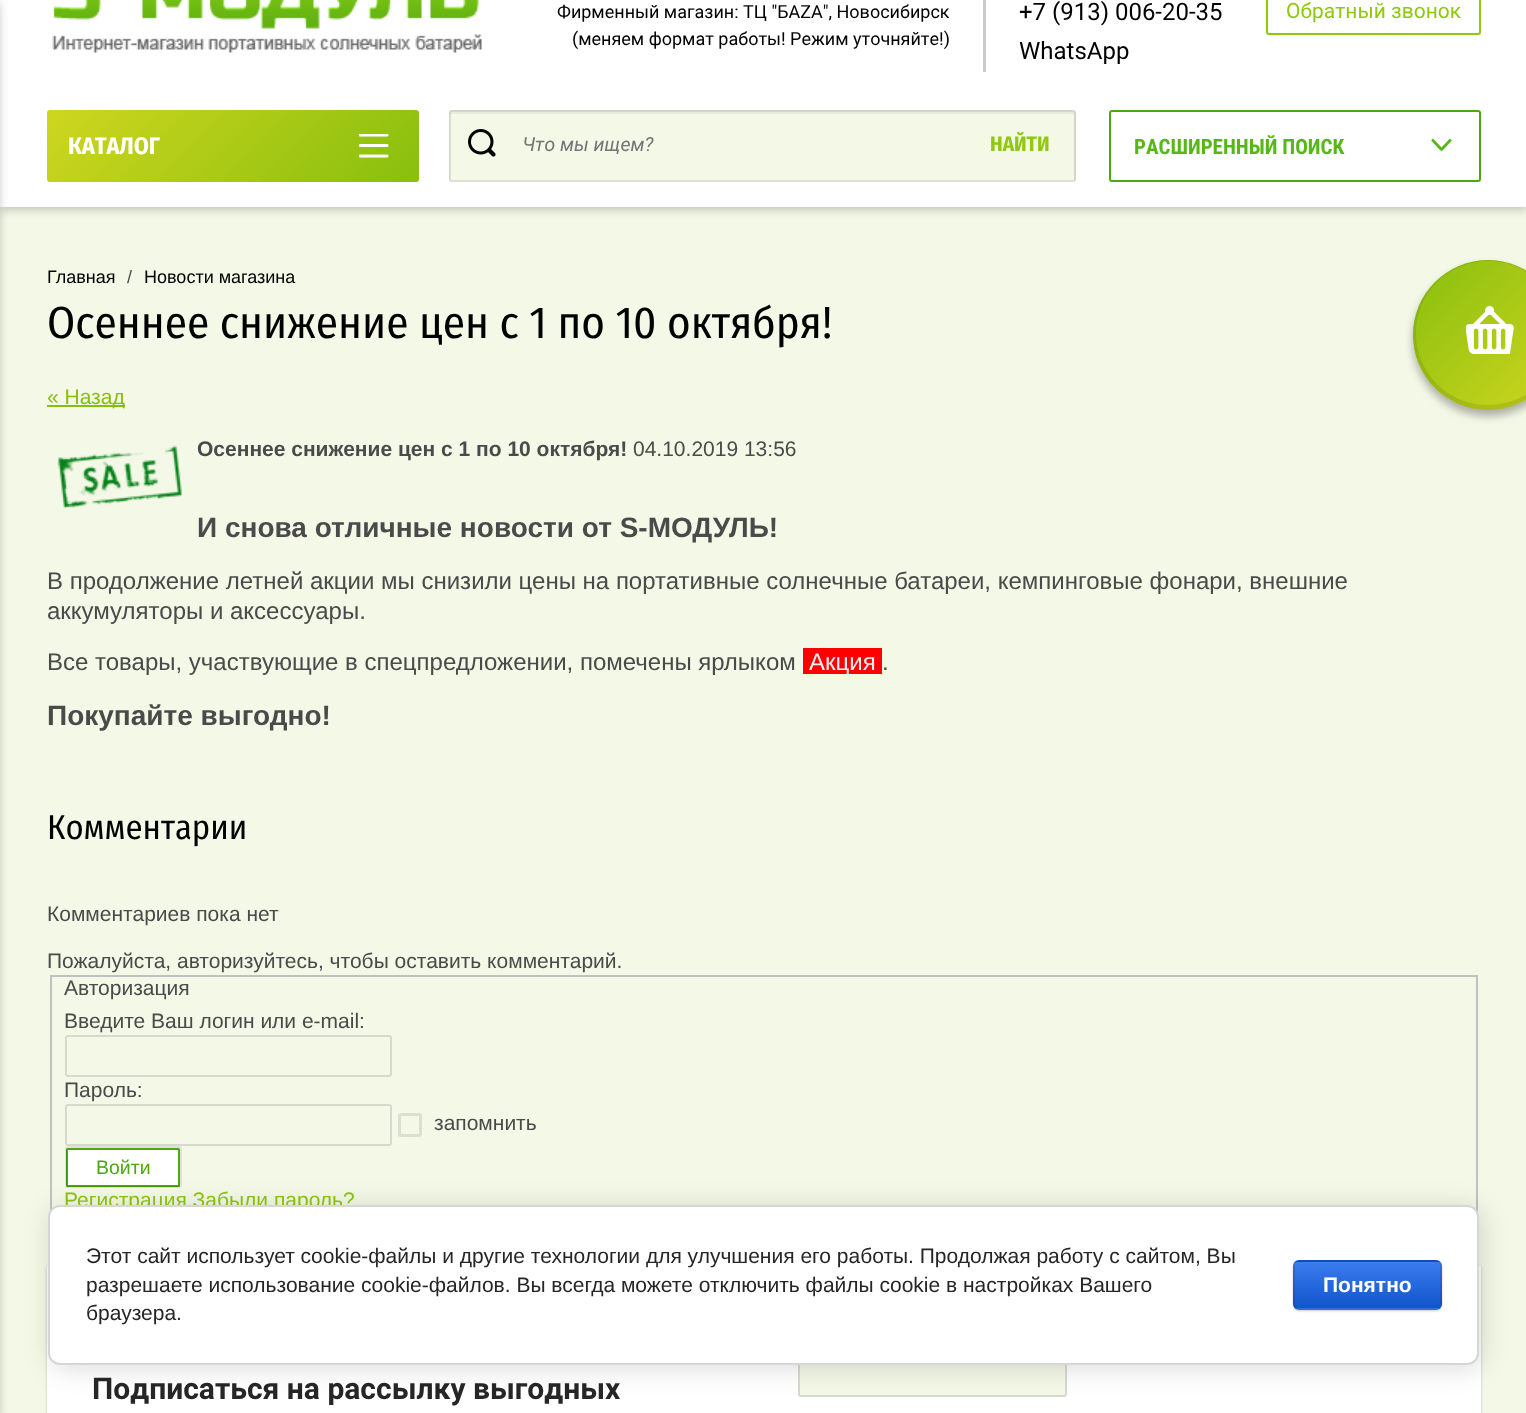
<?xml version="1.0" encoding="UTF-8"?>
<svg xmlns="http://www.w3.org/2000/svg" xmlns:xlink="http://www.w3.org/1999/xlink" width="1526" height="1413">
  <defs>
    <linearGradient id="g1" gradientUnits="userSpaceOnUse" x1="121" y1="35" x2="344" y2="257"><stop offset="0" stop-color="#cfd61f" /><stop offset="1" stop-color="#88bf0e" /></linearGradient>
    <linearGradient id="g2" gradientUnits="userSpaceOnUse" x1="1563" y1="410" x2="1413" y2="260"><stop offset="0" stop-color="#cfd61f" /><stop offset="1" stop-color="#88bf0e" /></linearGradient>
    <clipPath id="clip1"><rect x="1293" y="1260" width="149" height="50" rx="6" /></clipPath>
    <linearGradient id="g3" gradientUnits="userSpaceOnUse" x1="1367" y1="1215" x2="1367" y2="1262"><stop offset="0" stop-color="#3b7cef" /><stop offset="1" stop-color="#1155cc" /></linearGradient>
    <linearGradient id="g4" gradientUnits="userSpaceOnUse" x1="1367" y1="1262" x2="1367" y2="1308"><stop offset="0" stop-color="#3b7cef" /><stop offset="1" stop-color="#1155cc" /></linearGradient>
    <linearGradient id="g5" gradientUnits="userSpaceOnUse" x1="1367" y1="1308" x2="1367" y2="1355"><stop offset="0" stop-color="#3b7cef" /><stop offset="1" stop-color="#1155cc" /></linearGradient>
  </defs>
  <rect width="100%" height="100%" fill="#f4f8e7" />
  <rect y="-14" width="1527" height="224" fill="#000000" fill-opacity="0.2" filter="blur(4.5px)" />
  <rect width="1526" height="207" fill="#ffffff" />
  <rect x="-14" y="3" width="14" height="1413" fill="#000000" fill-opacity="0.2" filter="blur(4.5px)" />
  <image x="52" y="0" width="430" height="53" xlink:href="image1.png" />
  <rect x="983" width="3" height="72" fill="#cccccc" />
  <rect x="1267" y="-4" width="213" height="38" rx="2" fill="none" stroke="#8fc90e" stroke-width="2" />
  <rect x="47" y="110" width="372" height="72" rx="3" fill="url(#g1)" />
  <image x="359" y="134" width="30" height="24" xlink:href="image2.png" />
  <rect x="449" y="110" width="627" height="72" rx="3" fill="#f4f8e7" />
  <rect x="450" y="111" width="625" height="70" rx="2" fill="none" stroke="#202020" stroke-opacity="0.1" stroke-width="2" />
  <path d="M 452 114 h 620 c 1 0 2 1 2 2 v 66 c 1 -1 2 -2 2 -3 v -66 c 0 -2 -1 -3 -3 -3 h -621 c -2 0 -3 1 -3 3 v 66 c 0 1 0 2 1 2 v -66 z" fill="#000000" fill-opacity="0.05" />
  <image x="468" y="129" width="28" height="28" xlink:href="image3.png" />
  <rect x="1110" y="111" width="370" height="70" rx="2" fill="none" stroke="#4ca80f" stroke-width="2" />
  <path d="M 1451 141.5 l -8 8.5 c -0.5 1 -1.5 1 -2 0 c -0.5 -0.5 -1 -1.5 0 -2 l 8 -8.5 c 0.5 -1 1.5 -1 2 0 c 0.5 0.5 1 1.5 0 2 z" fill="#57b717" />
  <path d="M 1434 139.5 l 8 8.5 c 1 0.5 0.5 1.5 0 2 c -0.5 1 -1.5 1 -2 0 l -8 -8.5 c -1 -0.5 -0.5 -1.5 0 -2 c 0.5 -1 1.5 -1 2 0 z" fill="#57b717" />
  <rect x="47" y="405" width="78" height="2" fill="#88bf0e" />
  <image x="57" y="445" width="125" height="64" xlink:href="image4.png" />
  <rect x="803" y="648" width="79" height="26" fill="#ff0000" />
  <rect x="51" y="976" width="1426" height="255" fill="none" stroke="#c0c0c0" stroke-width="2" />
  <rect x="66" y="1036" width="325" height="40" rx="2" fill="none" stroke="#d7dacb" stroke-width="2" />
  <rect x="66" y="1105" width="325" height="40" rx="2" fill="none" stroke="#d7dacb" stroke-width="2" />
  <rect x="399.5" y="1114.5" width="21" height="21" rx="1.5" fill="none" stroke="#dcdfd0" stroke-width="3" />
  <rect x="65" y="1146" width="117" height="42" rx="3" fill="#ffffff" />
  <rect x="67" y="1149" width="112" height="37" rx="0.5" fill="none" stroke="#4ca80f" stroke-width="2" />
  <rect x="66" y="1147" width="115" height="40" rx="2" fill="none" stroke="#000000" stroke-opacity="0.12" stroke-width="2" />
  <rect x="47" y="1266" width="1434" height="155" rx="3" fill="#000000" fill-opacity="0.2" filter="blur(1.5px)" />
  <rect x="47" y="1265" width="1434" height="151" rx="3" fill="#ffffff" />
  <rect x="798" y="1355" width="269" height="42" rx="3" fill="#f4f8e7" />
  <rect x="799" y="1356" width="267" height="40" rx="2" fill="none" stroke="#000000" stroke-opacity="0.12" stroke-width="2" />
  <rect x="1413" y="266" width="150" height="150" rx="75" fill="#000000" fill-opacity="0.3" filter="blur(4px)" />
  <circle cx="1488" cy="335" r="75" fill="url(#g2)" />
  <path d="M 1488 260 c -41 0 -75 34 -75 75 c 0 41 34 75 75 75 c 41 0 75 -34 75 -75 c 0 -41 -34 -75 -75 -75 z m 0 1 c -40 0 -72 32 -72 72 c 0 40 32 72 72 72 c 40 0 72 -32 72 -72 c 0 -40 -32 -72 -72 -72 z" fill="#000000" fill-opacity="0.09" fill-rule="evenodd" />
  <image x="1466" y="306" width="48" height="48" xlink:href="image5.png" />
  <rect x="51" y="1208" width="1431" height="160" rx="12" fill="#000000" fill-opacity="0.14" filter="blur(13.5px)" />
  <text x="557" y="18" style="font-family: Roboto; font-size: 18px; fill: #000000">Фирменный магазин: ТЦ "БАZА", Новосибирск</text>
  <text x="572" y="45" style="font-family: Roboto; font-size: 18px; fill: #000000">(меняем формат работы! Режим уточняйте!)</text>
  <text x="1019" y="20" style="font-family: Roboto; font-size: 24px; fill: #000000">+7 (913) 006-20-35</text>
  <text x="1019" y="59" style="font-family: Roboto; font-size: 24px; fill: #000000">WhatsApp</text>
  <text x="1286" y="18" style="font-family: Roboto; font-size: 21px; fill: #8fc90e">Обратный звонок</text>
  <text x="68" y="154" style="font-family: Fira Sans Condensed; font-size: 24px; font-weight: bold; fill: #ffffff">КАТАЛОГ</text>
  <text x="522" y="151" style="font-family: Roboto; font-size: 19.5px; font-style: italic; fill: #757575">Что мы ищем?</text>
  <text x="990" y="151" style="font-family: Fira Sans Condensed; font-size: 21px; font-weight: bold; fill: #8fc90e">НАЙТИ</text>
  <text x="1134" y="154" style="font-family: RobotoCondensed; font-size: 21px; font-weight: bold; fill: #57b717">РАСШИРЕННЫЙ ПОИСК</text>
  <text x="47" y="283" style="font-family: Liberation Sans; font-size: 18px; fill: #000000">Главная</text>
  <text x="127" y="283" style="font-family: Liberation Sans; font-size: 18px; fill: #4a4a4a">/</text>
  <text x="144" y="283" style="font-family: Liberation Sans; font-size: 18px; fill: #000000">Новости магазина</text>
  <text x="47" y="338" style="font-family: Fira Sans Condensed; font-size: 45px; fill: #000000">Осеннее снижение цен с 1 по 10 октября!</text>
  <text x="47" y="404" style="font-family: Liberation Sans; font-size: 21px; fill: #88bf0e">« Назад</text>
  <text x="197" y="456" style="font-family: Liberation Sans; font-size: 21px; font-weight: bold; fill: #4a4a4a">Осеннее снижение цен с 1 по 10 октября!</text>
  <text x="633" y="456" style="font-family: Liberation Sans; font-size: 21px; fill: #4a4a4a">04.10.2019 13:56</text>
  <text x="197" y="537" style="font-family: Liberation Sans; font-size: 28px; font-weight: bold; fill: #4a4a4a">И снова отличные новости от S-МОДУЛЬ!</text>
  <text x="47" y="589" style="font-family: Liberation Sans; font-size: 24px; fill: #4a4a4a">В продолжение летней акции мы снизили цены на портативные солнечные батареи, кемпинговые фонари, внешние</text>
  <text x="47" y="619" style="font-family: Liberation Sans; font-size: 24px; fill: #4a4a4a">аккумуляторы и аксессуары.</text>
  <text x="47" y="670" style="font-family: Liberation Sans; font-size: 24px; fill: #4a4a4a">Все товары, участвующие в спецпредложении, помечены ярлыком</text>
  <text x="809" y="670" style="font-family: Liberation Sans; font-size: 24px; fill: #ecf0f1">Акция</text>
  <text x="882" y="670" style="font-family: Liberation Sans; font-size: 24px; fill: #4a4a4a">.</text>
  <text x="47" y="725" style="font-family: Liberation Sans; font-size: 28px; font-weight: bold; fill: #4a4a4a">Покупайте выгодно!</text>
  <text x="47" y="839" style="font-family: Fira Sans Condensed; font-size: 34.5px; fill: #000000">Комментарии</text>
  <text x="47" y="921" style="font-family: Liberation Sans; font-size: 21px; fill: #4a4a4a">Комментариев пока нет</text>
  <text x="47" y="968" style="font-family: Liberation Sans; font-size: 21px; fill: #4a4a4a">Пожалуйста, авторизуйтесь, чтобы оставить комментарий.</text>
  <text x="64" y="995" style="font-family: Liberation Sans; font-size: 21px; fill: #4a4a4a">Авторизация</text>
  <text x="64" y="1028" style="font-family: Liberation Sans; font-size: 21px; fill: #4a4a4a">Введите Ваш логин или e-mail:</text>
  <text x="64" y="1097" style="font-family: Liberation Sans; font-size: 21px; fill: #4a4a4a">Пароль:</text>
  <text x="434" y="1130" style="font-family: Liberation Sans; font-size: 21px; fill: #4a4a4a">запомнить</text>
  <text x="96" y="1174" style="font-family: Liberation Sans; font-size: 19.5px; fill: #4ca80f">Войти</text>
  <text x="64" y="1207" style="font-family: Liberation Sans; font-size: 21px; fill: #88bf0e">Регистрация Забыли пароль?</text>
  <text x="92" y="1399" style="font-family: Roboto; font-size: 30px; font-weight: bold; fill: #262626">Подписаться на рассылку выгодных</text>
  <rect x="49" y="1206" width="1429" height="158" rx="11" fill="#ffffff" stroke="#d6d6d6" stroke-width="2" />
  <text x="86" y="1263" style="font-family: Liberation Sans; font-size: 21px; fill: #262626">Этот сайт использует cookie-файлы и другие технологии для улучшения его работы. Продолжая работу с сайтом, Вы</text>
  <text x="86" y="1292" style="font-family: Liberation Sans; font-size: 21px; fill: #262626">разрешаете использование cookie-файлов. Вы всегда можете отключить файлы cookie в настройках Вашего</text>
  <text x="86" y="1320" style="font-family: Liberation Sans; font-size: 21px; fill: #262626">браузера.</text>
  <rect x="1293" y="1262" width="149" height="49" rx="6" fill="#000000" fill-opacity="0.2" filter="blur(1px)" />
  <g clip-path="url(#clip1)">
    <rect x="1293" y="1260" width="149" height="2" fill="url(#g3)" />
    <rect x="1293" y="1262" width="149" height="46" fill="url(#g4)" />
    <rect x="1293" y="1308" width="149" height="2" fill="url(#g5)" />
  </g>
  <rect x="1294" y="1261" width="147" height="48" rx="5" fill="none" stroke="#000000" stroke-opacity="0.1" stroke-width="2" />
  <text x="1323" y="1292" style="font-family: Liberation Sans; font-size: 21px; font-weight: bold; fill: #ffffff">Понятно</text>
</svg>
